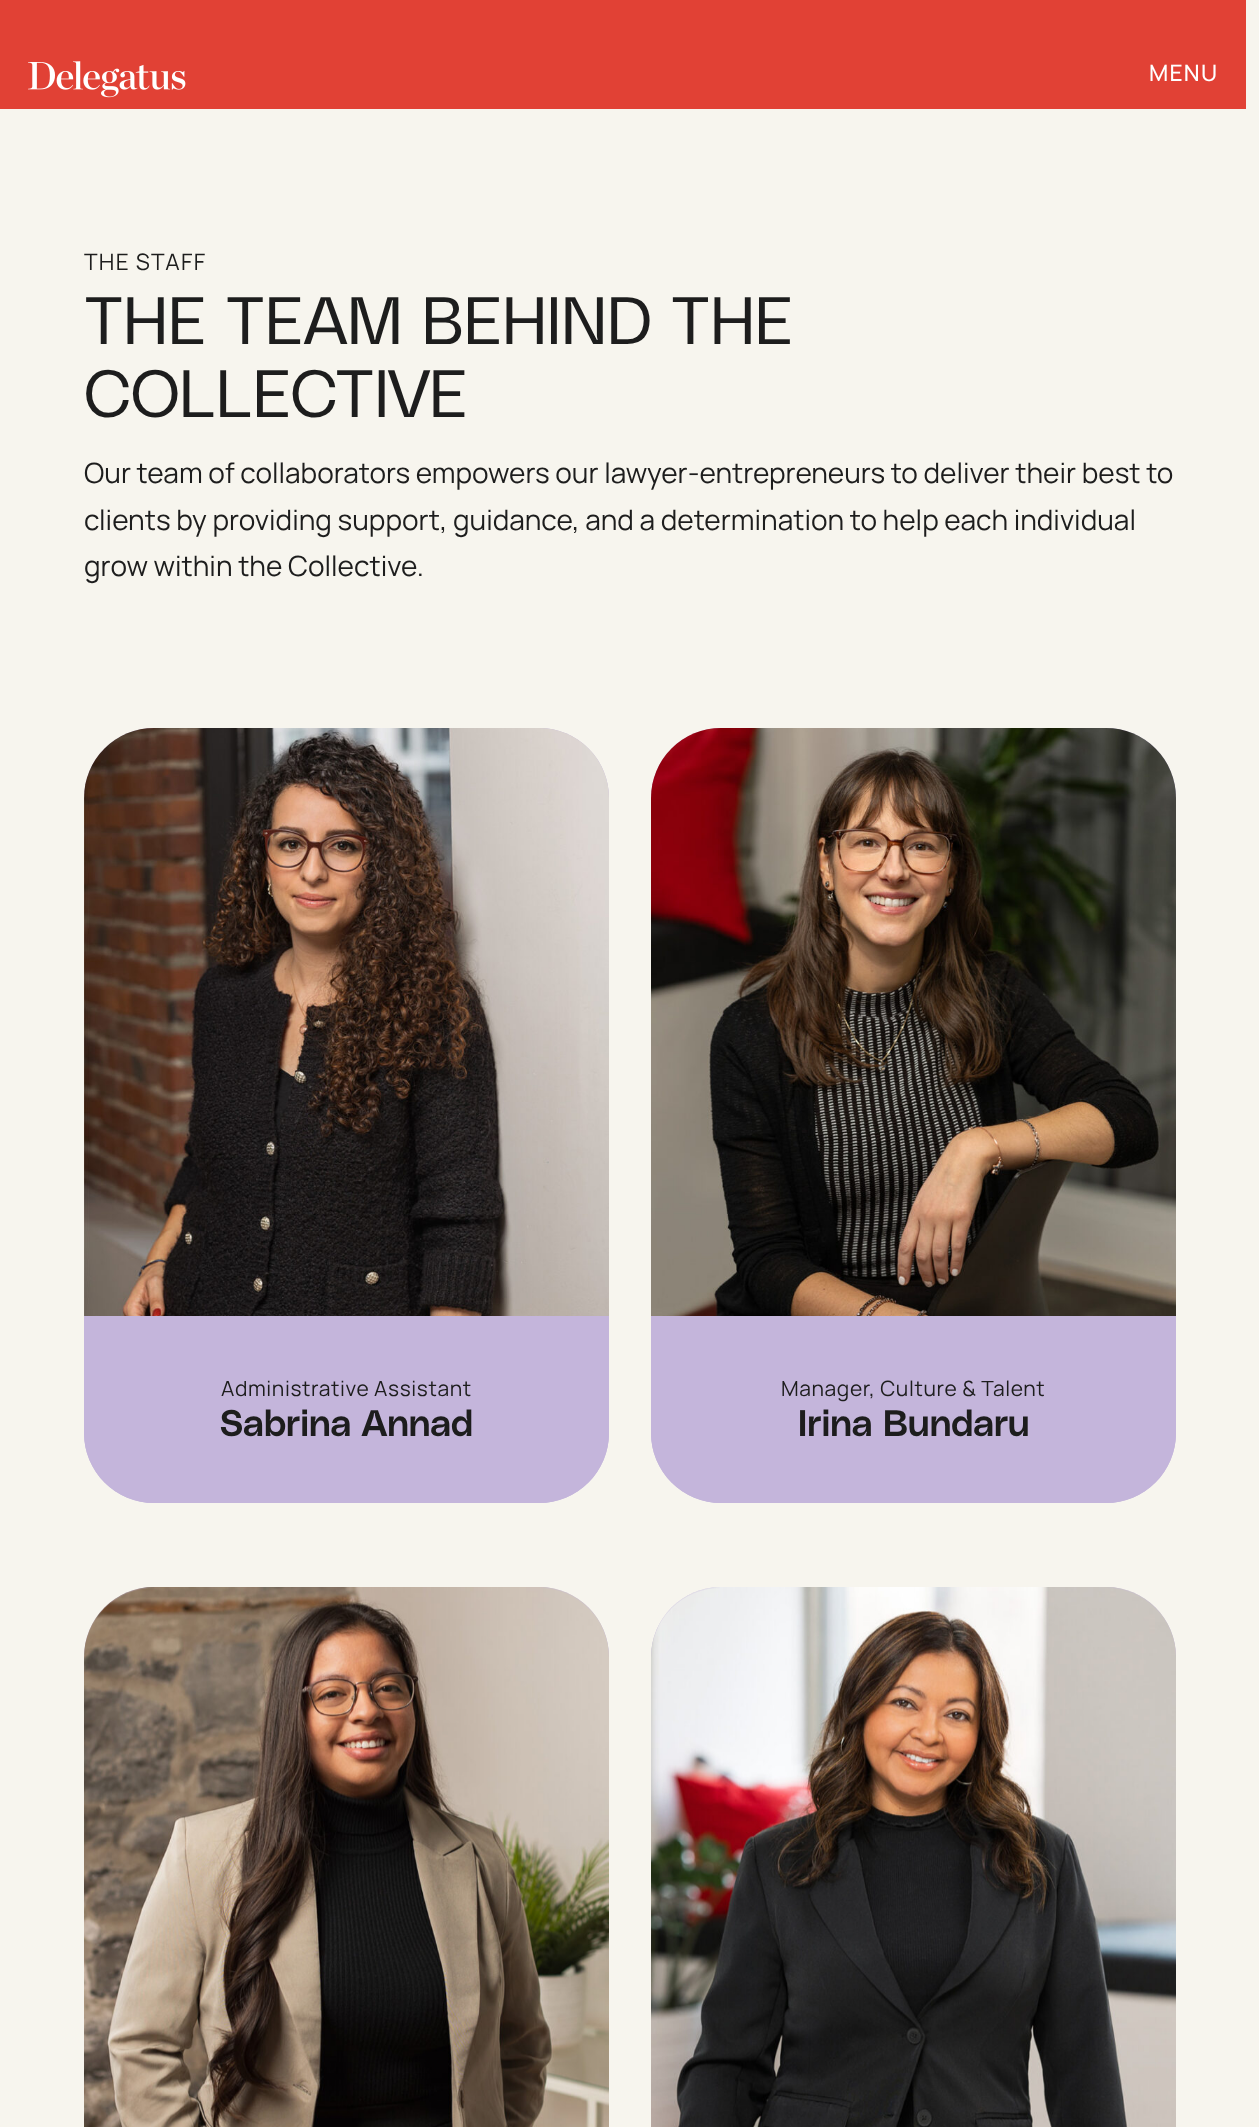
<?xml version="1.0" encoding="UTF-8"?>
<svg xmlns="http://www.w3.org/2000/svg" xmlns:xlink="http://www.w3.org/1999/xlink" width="1259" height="2127">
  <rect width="100%" height="100%" fill="#f7f5ee" />
  <rect width="1246" height="109" fill="#e14135" />
  <image x="28" y="61" width="158" height="37" xlink:href="image1.png" />
  <rect x="84" y="728" width="525" height="775" rx="70" fill="#c4b5db" />
  <image x="84" y="728" width="525" height="588" xlink:href="image2.png" />
  <path d="M 84 1316 h 525 v 117 c 0 38.5 -31.5 70 -70 70 h -385 c -38.5 0 -70 -31.5 -70 -70 z" fill="#c4b5db" />
  <rect x="651" y="728" width="525" height="775" rx="70" fill="#c4b5db" />
  <image x="651" y="728" width="525" height="588" xlink:href="image3.png" />
  <path d="M 651 1316 h 525 v 117 c 0 38.5 -31.5 70 -70 70 h -385 c -38.5 0 -70 -31.5 -70 -70 z" fill="#c4b5db" />
  <path d="M 154 1587 h 385 c 38.5 0 70 31.5 70 70 v 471 h -525 v -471 c 0 -38.5 31.5 -70 70 -70 z" fill="#c4b5db" />
  <image x="84" y="1587" width="525" height="540" xlink:href="image4.png" />
  <path d="M 721 1587 h 385 c 38.5 0 70 31.5 70 70 v 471 h -525 v -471 c 0 -38.5 31.5 -70 70 -70 z" fill="#c4b5db" />
  <image x="651" y="1587" width="525" height="540" xlink:href="image5.png" />
  <text x="1149" y="81" style="font-family: Manrope; font-size: 22.75px; font-weight: 500; letter-spacing: 1.25px; fill: #ffffff">MENU</text>
  <text x="84" y="270" style="font-family: Manrope; font-size: 22.75px; letter-spacing: 1.25px; fill: #1d1d1d">THE STAFF</text>
  <text x="84" y="344" style="font-family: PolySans; font-size: 66.5px; font-weight: 300; fill: #1d1d1d">THE TEAM BEHIND THE</text>
  <text x="84" y="417" style="font-family: PolySans; font-size: 66.5px; font-weight: 300; fill: #1d1d1d">COLLECTIVE</text>
  <text x="84" y="483" style="font-family: Manrope; font-size: 28px; fill: #1d1d1d">Our team of collaborators empowers our lawyer-entrepreneurs to deliver their best to</text>
  <text x="84" y="530" style="font-family: Manrope; font-size: 28px; fill: #1d1d1d">clients by providing support, guidance, and a determination to help each individual</text>
  <text x="84" y="576" style="font-family: Manrope; font-size: 28px; fill: #1d1d1d">grow within the Collective.</text>
  <text x="221" y="1396" style="font-family: Manrope; font-size: 21px; letter-spacing: 0.6px; fill: #1d1d1d">Administrative Assistant</text>
  <text x="220" y="1436" style="font-family: PolySans; font-size: 36.75px; font-weight: 600; fill: #1d1d1d">Sabrina Annad</text>
  <text x="781" y="1396" style="font-family: Manrope; font-size: 21px; letter-spacing: 0.6px; fill: #1d1d1d">Manager, Culture &amp; Talent</text>
  <text x="798" y="1436" style="font-family: PolySans; font-size: 36.75px; font-weight: 600; fill: #1d1d1d">Irina Bundaru</text>
</svg>
